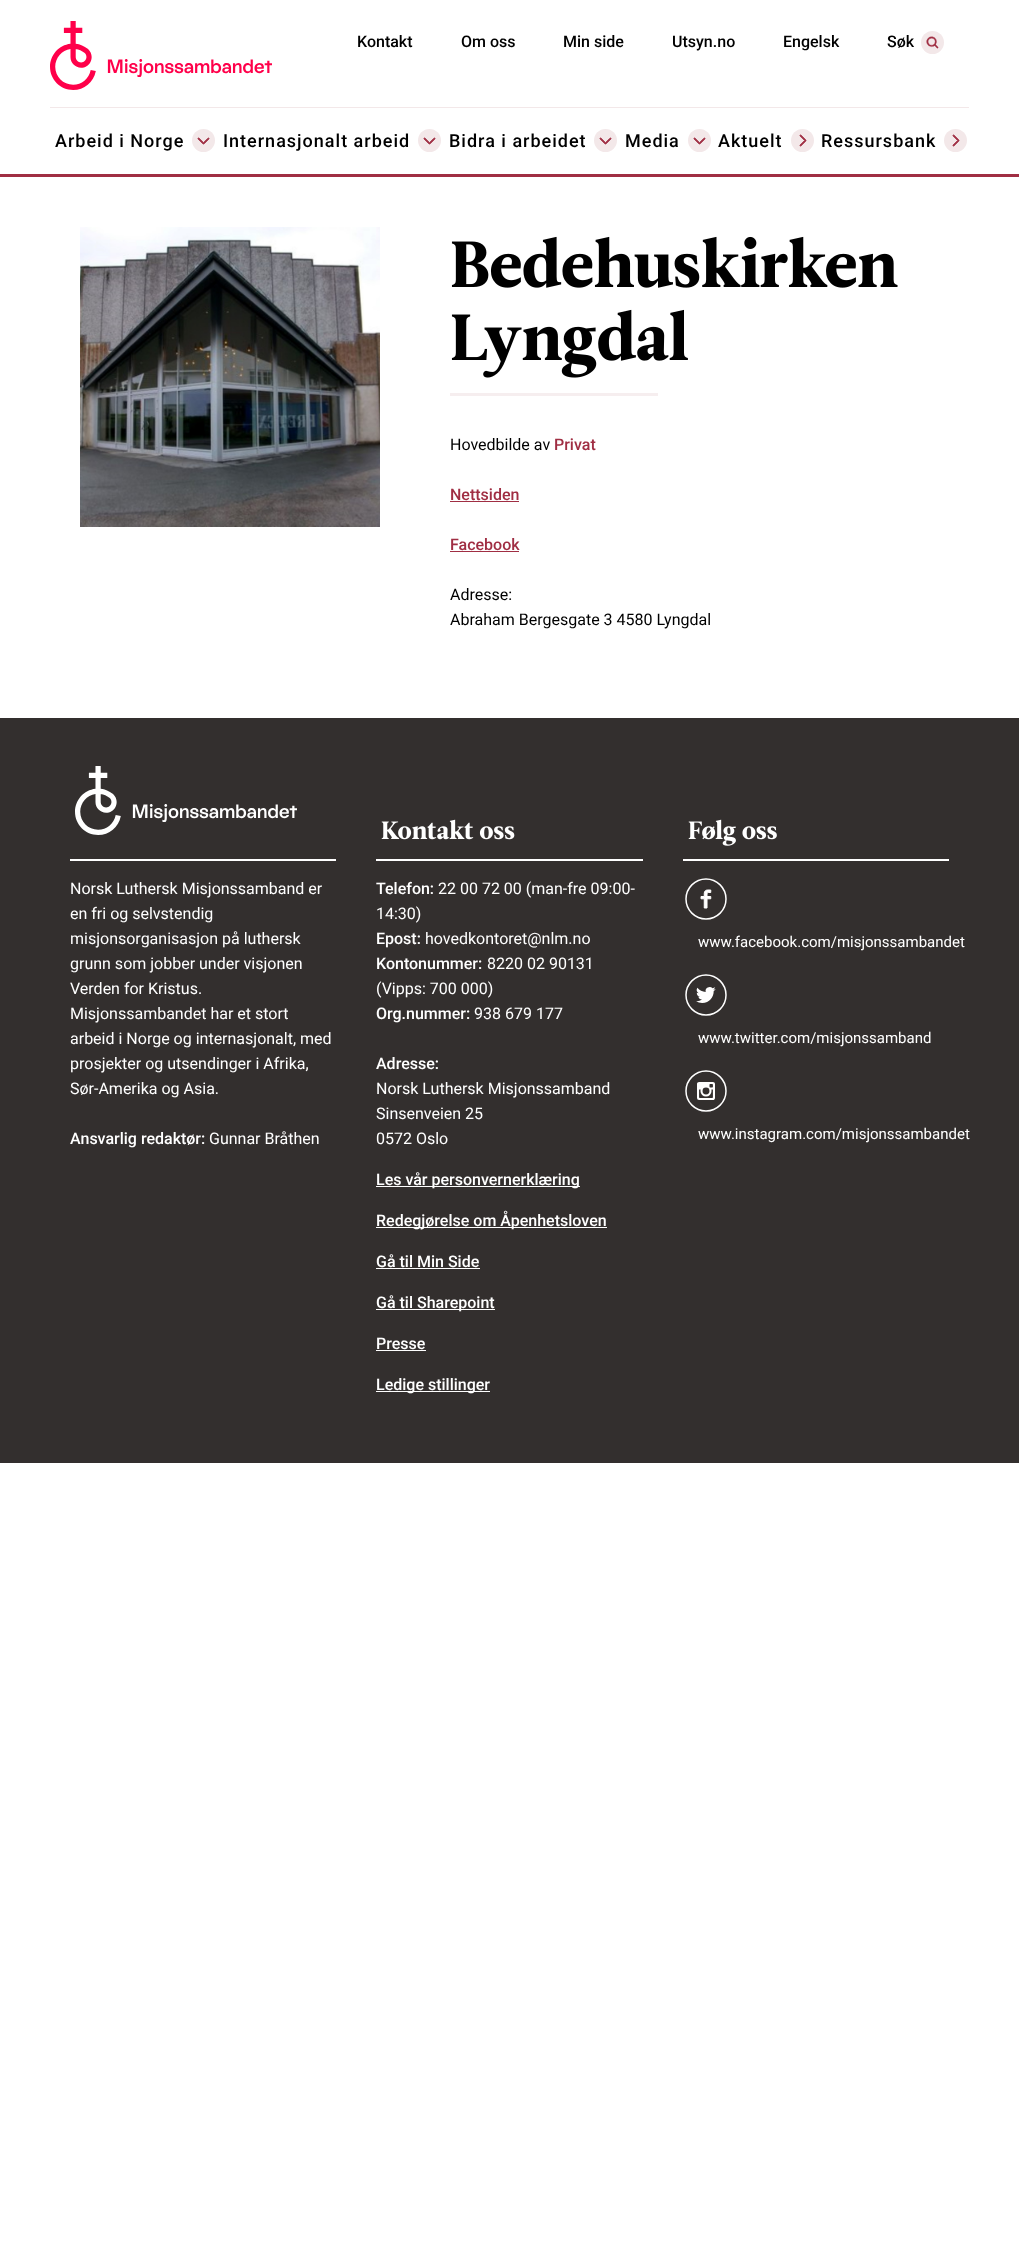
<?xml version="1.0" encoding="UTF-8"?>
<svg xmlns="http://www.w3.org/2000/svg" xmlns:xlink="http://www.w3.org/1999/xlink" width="1019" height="2266">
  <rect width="100%" height="100%" fill="#ffffff" />
  <image x="50" y="21" width="222" height="69" xlink:href="image1.png" />
  <image x="921" y="31" width="23" height="23" xlink:href="image2.png" />
  <rect x="50" y="107" width="919" height="1" fill="#f3e8e9" />
  <image x="192" y="129" width="23" height="23" xlink:href="image3.png" />
  <image x="418" y="129" width="23" height="23" xlink:href="image3.png" />
  <image x="594" y="129" width="23" height="23" xlink:href="image4.png" />
  <image x="688" y="129" width="23" height="23" xlink:href="image3.png" />
  <image x="791" y="129" width="23" height="23" xlink:href="image5.png" />
  <image x="944" y="129" width="23" height="23" xlink:href="image6.png" />
  <rect y="174" width="1019" height="3" fill="#a02e43" />
  <image x="80" y="227" width="300" height="300" xlink:href="image7.png" />
  <image x="451" y="236" width="447" height="52" xlink:href="image8.png" />
  <image x="451" y="309" width="237" height="69" xlink:href="image9.png" />
  <rect x="450" y="393" width="208" height="3" fill="#f6eeef" />
  <rect x="450" y="501" width="69" height="1" fill="#a02e43" />
  <rect x="450" y="551" width="69" height="1" fill="#a02e43" />
  <rect y="718" width="1019" height="745" fill="#332f2e" />
  <rect x="70" y="859" width="266" height="2" fill="#ffffff" />
  <image x="75" y="766" width="222" height="69" xlink:href="image10.png" />
  <rect x="376" y="859" width="267" height="2" fill="#ffffff" />
  <image x="381" y="819" width="134" height="21" xlink:href="image11.png" />
  <rect x="376" y="1186" width="204" height="1" fill="#ffffff" />
  <rect x="376" y="1227" width="231" height="1" fill="#ffffff" />
  <rect x="376" y="1268" width="104" height="1" fill="#ffffff" />
  <rect x="376" y="1309" width="119" height="1" fill="#ffffff" />
  <rect x="376" y="1350" width="50" height="1" fill="#ffffff" />
  <rect x="376" y="1391" width="114" height="1" fill="#ffffff" />
  <rect x="683" y="859" width="266" height="2" fill="#ffffff" />
  <image x="688" y="819" width="89" height="27" xlink:href="image12.png" />
  <image x="685" y="878" width="42" height="42" xlink:href="image13.png" />
  <image x="685" y="974" width="42" height="42" xlink:href="image14.png" />
  <image x="685" y="1070" width="42" height="42" xlink:href="image15.png" />
  <text x="357" y="47" style="font-family: Roboto; font-size: 16px; font-weight: 500; fill: #000000">Kontakt</text>
  <text x="461" y="47" style="font-family: Roboto; font-size: 16px; font-weight: 500; fill: #000000">Om oss</text>
  <text x="563" y="47" style="font-family: Roboto; font-size: 16px; font-weight: 500; fill: #000000">Min side</text>
  <text x="672" y="47" style="font-family: Roboto; font-size: 16px; font-weight: 500; fill: #000000">Utsyn.no</text>
  <text x="783" y="47" style="font-family: Roboto; font-size: 16px; font-weight: 500; fill: #000000">Engelsk</text>
  <text x="887" y="47" style="font-family: Roboto; font-size: 16px; font-weight: 500; fill: #000000">Søk</text>
  <text x="55" y="147" style="font-family: Roboto; font-size: 18px; font-weight: 500; letter-spacing: 1px; fill: #000000">Arbeid i Norge</text>
  <text x="223" y="147" style="font-family: Roboto; font-size: 18px; font-weight: 500; letter-spacing: 1px; fill: #000000">Internasjonalt arbeid</text>
  <text x="449" y="147" style="font-family: Roboto; font-size: 18px; font-weight: 500; letter-spacing: 1px; fill: #000000">Bidra i arbeidet</text>
  <text x="625" y="147" style="font-family: Roboto; font-size: 18px; font-weight: 500; letter-spacing: 1px; fill: #000000">Media</text>
  <text x="718" y="147" style="font-family: Roboto; font-size: 18px; font-weight: 500; letter-spacing: 1px; fill: #000000">Aktuelt</text>
  <text x="821" y="147" style="font-family: Roboto; font-size: 18px; font-weight: 500; letter-spacing: 1px; fill: #000000">Ressursbank</text>
  <text x="450" y="450" style="font-family: Roboto; font-size: 16px; fill: #000000">Hovedbilde av</text>
  <text x="554" y="450" style="font-family: Roboto; font-size: 16px; font-weight: 500; fill: #a02e43">Privat</text>
  <text x="450" y="500" style="font-family: Roboto; font-size: 16px; font-weight: 500; fill: #a02e43">Nettsiden</text>
  <text x="450" y="550" style="font-family: Roboto; font-size: 16px; font-weight: 500; fill: #a02e43">Facebook</text>
  <text x="450" y="600" style="font-family: Roboto; font-size: 16px; fill: #000000">Adresse:</text>
  <text x="450" y="625" style="font-family: Roboto; font-size: 16px; fill: #000000">Abraham Bergesgate 3 4580 Lyngdal</text>
  <text x="70" y="894" style="font-family: Roboto; font-size: 16px; fill: #ffffff">Norsk Luthersk Misjonssamband er</text>
  <text x="70" y="919" style="font-family: Roboto; font-size: 16px; fill: #ffffff">en fri og selvstendig</text>
  <text x="70" y="944" style="font-family: Roboto; font-size: 16px; fill: #ffffff">misjonsorganisasjon på luthersk</text>
  <text x="70" y="969" style="font-family: Roboto; font-size: 16px; fill: #ffffff">grunn som jobber under visjonen</text>
  <text x="70" y="994" style="font-family: Roboto; font-size: 16px; fill: #ffffff">Verden for Kristus.</text>
  <text x="70" y="1019" style="font-family: Roboto; font-size: 16px; fill: #ffffff">Misjonssambandet har et stort</text>
  <text x="70" y="1044" style="font-family: Roboto; font-size: 16px; fill: #ffffff">arbeid i Norge og internasjonalt, med</text>
  <text x="70" y="1069" style="font-family: Roboto; font-size: 16px; fill: #ffffff">prosjekter og utsendinger i Afrika,</text>
  <text x="70" y="1094" style="font-family: Roboto; font-size: 16px; fill: #ffffff">Sør-Amerika og Asia.</text>
  <text x="70" y="1144" style="font-family: Roboto; font-size: 16px; font-weight: 500; fill: #ffffff">Ansvarlig redaktør:</text>
  <text x="209" y="1144" style="font-family: Roboto; font-size: 16px; fill: #ffffff">Gunnar Bråthen</text>
  <text x="376" y="894" style="font-family: Roboto; font-size: 16px; font-weight: 500; fill: #ffffff">Telefon:</text>
  <text x="438" y="894" style="font-family: Roboto; font-size: 16px; fill: #ffffff">22 00 72 00 (man-fre 09:00-</text>
  <text x="376" y="919" style="font-family: Roboto; font-size: 16px; fill: #ffffff">14:30)</text>
  <text x="376" y="944" style="font-family: Roboto; font-size: 16px; font-weight: 500; fill: #ffffff">Epost:</text>
  <text x="425" y="944" style="font-family: Roboto; font-size: 16px; fill: #ffffff">hovedkontoret@nlm.no</text>
  <text x="376" y="969" style="font-family: Roboto; font-size: 16px; font-weight: 500; fill: #ffffff">Kontonummer:</text>
  <text x="487" y="969" style="font-family: Roboto; font-size: 16px; fill: #ffffff">8220 02 90131</text>
  <text x="376" y="994" style="font-family: Roboto; font-size: 16px; fill: #ffffff">(Vipps: 700 000)</text>
  <text x="376" y="1019" style="font-family: Roboto; font-size: 16px; font-weight: 500; fill: #ffffff">Org.nummer:</text>
  <text x="474" y="1019" style="font-family: Roboto; font-size: 16px; fill: #ffffff">938 679 177</text>
  <text x="376" y="1069" style="font-family: Roboto; font-size: 16px; font-weight: 500; fill: #ffffff">Adresse:</text>
  <text x="376" y="1094" style="font-family: Roboto; font-size: 16px; fill: #ffffff">Norsk Luthersk Misjonssamband</text>
  <text x="376" y="1119" style="font-family: Roboto; font-size: 16px; fill: #ffffff">Sinsenveien 25</text>
  <text x="376" y="1144" style="font-family: Roboto; font-size: 16px; fill: #ffffff">0572 Oslo</text>
  <text x="376" y="1185" style="font-family: Roboto; font-size: 16px; font-weight: 500; fill: #ffffff">Les vår personvernerklæring</text>
  <text x="376" y="1226" style="font-family: Roboto; font-size: 16px; font-weight: 500; fill: #ffffff">Redegjørelse om Åpenhetsloven</text>
  <text x="376" y="1267" style="font-family: Roboto; font-size: 16px; font-weight: 500; fill: #ffffff">Gå til Min Side</text>
  <text x="376" y="1308" style="font-family: Roboto; font-size: 16px; font-weight: 500; fill: #ffffff">Gå til Sharepoint</text>
  <text x="376" y="1349" style="font-family: Roboto; font-size: 16px; font-weight: 500; fill: #ffffff">Presse</text>
  <text x="376" y="1390" style="font-family: Roboto; font-size: 16px; font-weight: 500; fill: #ffffff">Ledige stillinger</text>
  <text x="698" y="947" style="font-family: Roboto; font-size: 15px; fill: #ffffff">www.facebook.com/misjonssambandet</text>
  <text x="698" y="1043" style="font-family: Roboto; font-size: 15px; fill: #ffffff">www.twitter.com/misjonssamband</text>
  <text x="698" y="1139" style="font-family: Roboto; font-size: 15px; fill: #ffffff">www.instagram.com/misjonssambandet</text>
</svg>
